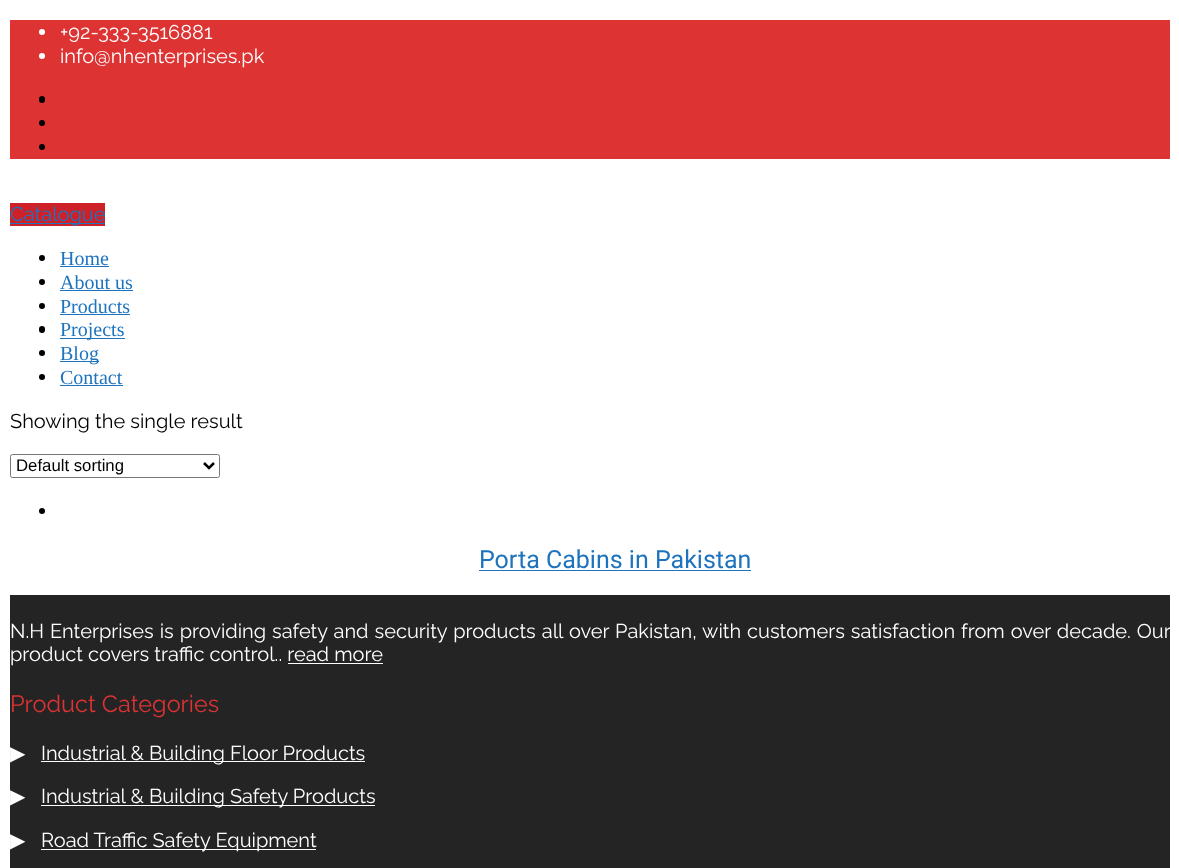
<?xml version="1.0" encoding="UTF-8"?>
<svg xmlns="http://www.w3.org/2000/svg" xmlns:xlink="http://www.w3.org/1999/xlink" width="1179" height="868">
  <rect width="100%" height="100%" fill="#ffffff" />
  <rect x="10" y="20" width="1160" height="139" fill="#dd3333" />
  <circle cx="42" cy="32" r="3" fill="#ffffff" />
  <circle cx="42" cy="56" r="3" fill="#ffffff" />
  <rect x="39" y="96" width="6" height="7" rx="3" fill="#000000" />
  <circle cx="42" cy="123" r="3" fill="#000000" />
  <circle cx="42" cy="147" r="3" fill="#000000" />
  <rect x="10" y="203" width="95" height="23" fill="#cd2027" />
  <rect x="10" y="223" width="95" height="1" fill="#1e73be" />
  <circle cx="42" cy="258" r="3" fill="#000000" />
  <rect x="60" y="266" width="49" height="1" fill="#1e73be" />
  <circle cx="42" cy="282" r="3" fill="#000000" />
  <rect x="60" y="290" width="73" height="1" fill="#1e73be" />
  <circle cx="42" cy="306" r="3" fill="#000000" />
  <rect x="60" y="314" width="70" height="1" fill="#1e73be" />
  <rect x="39" y="326" width="6" height="7" rx="3" fill="#000000" />
  <rect x="60" y="338" width="65" height="1" fill="#1e73be" />
  <circle cx="42" cy="353" r="3" fill="#000000" />
  <rect x="60" y="361" width="39" height="1" fill="#1e73be" />
  <circle cx="42" cy="377" r="3" fill="#000000" />
  <rect x="60" y="385" width="63" height="1" fill="#1e73be" />
  <rect x="10.5" y="454.5" width="209" height="23" rx="2" fill="none" stroke="#767676" />
  <path d="M 204 463 l 5 5 l 5 -5" fill="none" stroke="#000000" stroke-width="2.5" />
  <circle cx="42" cy="511" r="3" fill="#000000" />
  <rect x="479" y="570" width="272" height="1" fill="#1e73be" />
  <rect x="10" y="595" width="1160" height="273" fill="#242424" />
  <rect x="288" y="663" width="95" height="1" fill="#ffffff" />
  <rect x="41" y="761" width="324" height="1" fill="#ffffff" />
  <rect x="41" y="805" width="334" height="1" fill="#ffffff" />
  <rect x="41" y="849" width="275" height="1" fill="#ffffff" />
  <text x="60" y="39" style="font-family: Raleway; font-size: 20px; fill: #ffffff">+92-333-3516881</text>
  <text x="60" y="63" style="font-family: Raleway; font-size: 20px; fill: #ffffff">info@nhenterprises.pk</text>
  <text x="10" y="221" style="font-family: Raleway; font-size: 20px; fill: #1e73be">Catalogue</text>
  <text x="60" y="265" style="font-family: Liberation Serif; font-size: 20px; fill: #1e73be">Home</text>
  <text x="60" y="289" style="font-family: Liberation Serif; font-size: 20px; fill: #1e73be">About us</text>
  <text x="60" y="313" style="font-family: Liberation Serif; font-size: 20px; fill: #1e73be">Products</text>
  <text x="60" y="336" style="font-family: Liberation Serif; font-size: 20px; fill: #1e73be">Projects</text>
  <text x="60" y="360" style="font-family: Liberation Serif; font-size: 20px; fill: #1e73be">Blog</text>
  <text x="60" y="384" style="font-family: Liberation Serif; font-size: 20px; fill: #1e73be">Contact</text>
  <text x="10" y="428" style="font-family: Raleway; font-size: 20px; fill: #000000">Showing the single result</text>
  <text x="16" y="471" style="font-family: Liberation Sans; font-size: 16.75px; fill: #000000">Default sorting</text>
  <text x="479" y="568" style="font-family: Roboto; font-size: 25px; fill: #1e73be">Porta Cabins in Pakistan</text>
  <text x="10" y="638" word-spacing="0.9" style="font-family: Raleway; font-size: 20px; fill: #ffffff">N.H Enterprises is providing safety and security products all over Pakistan, with customers satisfaction from over decade. Our</text>
  <text x="10" y="661" style="font-family: Raleway; font-size: 20px; fill: #ffffff">product covers traffic control.. read more</text>
  <text x="10" y="712" style="font-family: Raleway; font-size: 23.5px; fill: #dd3333">Product Categories</text>
  <text x="10" y="760" style="font-family: DejaVu Sans; font-size: 20px; fill: #ffffff">▶</text>
  <text x="41" y="760" style="font-family: Raleway; font-size: 20px; fill: #ffffff">Industrial &amp; Building Floor Products</text>
  <text x="10" y="803" style="font-family: DejaVu Sans; font-size: 20px; fill: #ffffff">▶</text>
  <text x="41" y="803" style="font-family: Raleway; font-size: 20px; fill: #ffffff">Industrial &amp; Building Safety Products</text>
  <text x="10" y="847" style="font-family: DejaVu Sans; font-size: 20px; fill: #ffffff">▶</text>
  <text x="41" y="847" style="font-family: Raleway; font-size: 20px; fill: #ffffff">Road Traffic Safety Equipment</text>
</svg>
